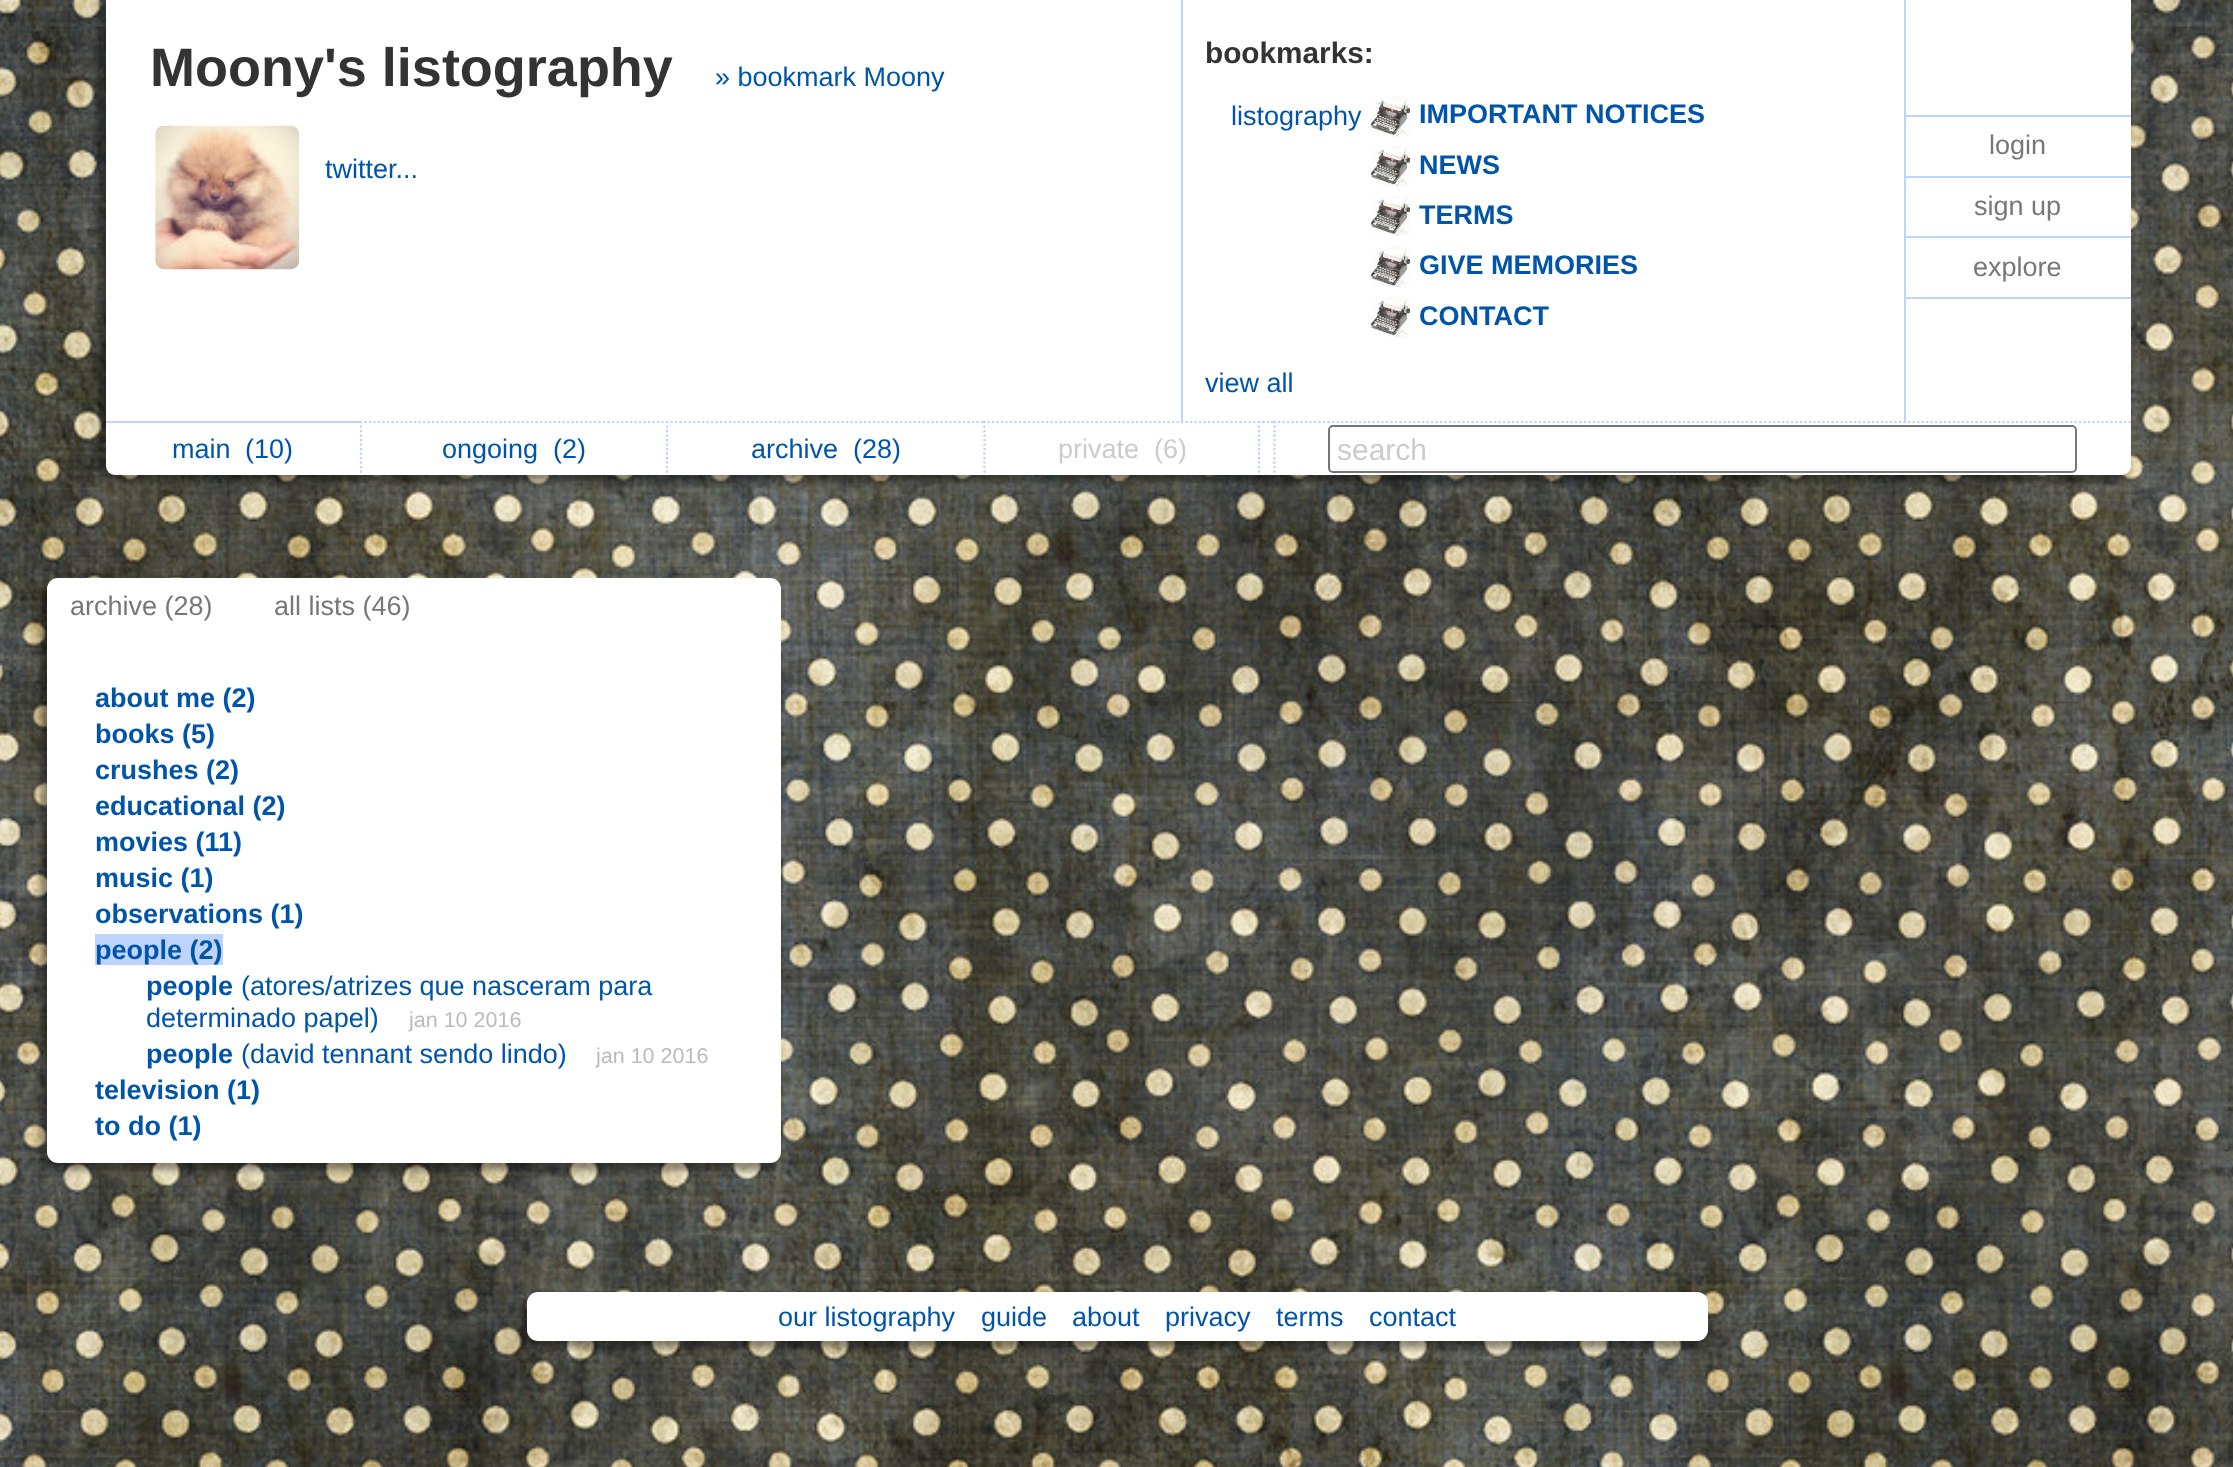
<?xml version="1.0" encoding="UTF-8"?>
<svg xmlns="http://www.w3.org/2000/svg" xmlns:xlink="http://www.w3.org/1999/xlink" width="2233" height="1467">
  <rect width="100%" height="100%" fill="#ffffff" />
  <image x="0" y="0" width="2233" height="1467" xlink:href="image1.png" />
  <rect x="99" y="-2" width="2025" height="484" rx="9" fill="#000000" fill-opacity="0.4" filter="blur(3.5px)" />
  <rect x="106" y="-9" width="2025" height="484" rx="9" fill="#ffffff" />
  <rect x="1181" width="2" height="423" fill="#bed4ff" />
  <image x="155" y="125" width="145" height="145" xlink:href="image2.png" />
  <image x="1370" y="96" width="41" height="41" xlink:href="image3.png" />
  <image x="1370" y="146" width="41" height="40" xlink:href="image4.png" />
  <image x="1370" y="195" width="41" height="41" xlink:href="image3.png" />
  <image x="1370" y="247" width="41" height="41" xlink:href="image5.png" />
  <image x="1370" y="296" width="41" height="41" xlink:href="image6.png" />
  <rect x="1904" y="115" width="227" height="2" fill="#bed4ff" />
  <rect x="1904" y="176" width="227" height="2" fill="#bed4ff" />
  <rect x="1904" y="236" width="227" height="2" fill="#bed4ff" />
  <rect x="1904" y="297" width="227" height="2" fill="#bed4ff" />
  <rect x="1904" width="2" height="423" fill="#bed4ff" />
  <rect x="106" y="421" width="254" height="2" fill="#bed4ff" />
  <path d="M 360 422 h 306" fill="none" stroke="#bed4ff" stroke-width="2.2" stroke-dasharray="2.25 2.25" />
  <path d="M 361 421 v 54" fill="none" stroke="#bed4ff" stroke-width="2.2" stroke-dasharray="2.25 2.25" />
  <path d="M 666 422 h 317" fill="none" stroke="#bed4ff" stroke-width="2.2" stroke-dasharray="2.25 2.25" />
  <path d="M 667 421 v 54" fill="none" stroke="#bed4ff" stroke-width="2.2" stroke-dasharray="2.25 2.25" />
  <path d="M 983 422 h 275" fill="none" stroke="#bed4ff" stroke-width="2.2" stroke-dasharray="2.25 2.25" />
  <path d="M 984.5 421 v 54" fill="none" stroke="#bed4ff" stroke-width="2.2" stroke-dasharray="2.25 2.25" />
  <path d="M 1258 422 h 2 m 2 0 h 2.5 m 2.5 0 h 2 m 2 0 h 2.5" fill="none" stroke="#bed4ff" stroke-width="2.2" />
  <path d="M 1259 421 v 54" fill="none" stroke="#bed4ff" stroke-width="2.2" stroke-dasharray="2.25 2.25" />
  <path d="M 1273.5 422 h 857.5" fill="none" stroke="#bed4ff" stroke-width="2.2" stroke-dasharray="2.25 2.25" />
  <path d="M 1274.5 421 v 54" fill="none" stroke="#bed4ff" stroke-width="2.2" stroke-dasharray="2.25 2.25" />
  <rect x="1329" y="426" width="747" height="46" rx="4" fill="none" stroke="#767676" stroke-width="2" />
  <rect x="41" y="585" width="733" height="585" rx="11" fill="#000000" fill-opacity="0.4" filter="blur(3.5px)" />
  <rect x="47" y="578" width="734" height="585" rx="11" fill="#ffffff" />
  <rect x="95" y="934" width="128" height="31" fill="#bed4ff" />
  <rect x="520" y="1298" width="1181" height="50" rx="11" fill="#000000" fill-opacity="0.4" filter="blur(3.5px)" />
  <rect x="527" y="1292" width="1181" height="49" rx="11" fill="#ffffff" />
  <text x="150" y="86" style="font-family: Liberation Sans; font-size: 54px; font-weight: bold; fill: #333333">Moony's listography</text>
  <text x="715" y="86" style="font-family: Liberation Sans; font-size: 27px; fill: #0055aa">» bookmark Moony</text>
  <text x="325" y="178" style="font-family: Liberation Sans; font-size: 27px; fill: #0055aa">twitter...</text>
  <text x="1205" y="63" style="font-family: Liberation Sans; font-size: 29.75px; font-weight: bold; fill: #333333">bookmarks:</text>
  <text x="1231" y="125" style="font-family: Liberation Sans; font-size: 27px; fill: #0055aa">listography</text>
  <text x="1419" y="123" style="font-family: Liberation Sans; font-size: 27px; font-weight: bold; fill: #0055aa">IMPORTANT NOTICES</text>
  <text x="1419" y="174" style="font-family: Liberation Sans; font-size: 27px; font-weight: bold; fill: #0055aa">NEWS</text>
  <text x="1419" y="224" style="font-family: Liberation Sans; font-size: 27px; font-weight: bold; fill: #0055aa">TERMS</text>
  <text x="1419" y="274" style="font-family: Liberation Sans; font-size: 27px; font-weight: bold; fill: #0055aa">GIVE MEMORIES</text>
  <text x="1419" y="325" style="font-family: Liberation Sans; font-size: 27px; font-weight: bold; fill: #0055aa">CONTACT</text>
  <text x="1205" y="392" style="font-family: Liberation Sans; font-size: 27px; fill: #0055aa">view all</text>
  <text x="1989" y="154" style="font-family: Liberation Sans; font-size: 27px; fill: #777777">login</text>
  <text x="1974" y="215" style="font-family: Liberation Sans; font-size: 27px; fill: #777777">sign up</text>
  <text x="1973" y="276" style="font-family: Liberation Sans; font-size: 27px; fill: #777777">explore</text>
  <text x="172" y="458" style="font-family: Liberation Sans; font-size: 27px; fill: #0055aa">main</text>
  <text x="245" y="458" style="font-family: Liberation Sans; font-size: 27px; fill: #0055aa">(10)</text>
  <text x="442" y="458" style="font-family: Liberation Sans; font-size: 27px; fill: #0055aa">ongoing</text>
  <text x="553" y="458" style="font-family: Liberation Sans; font-size: 27px; fill: #0055aa">(2)</text>
  <text x="751" y="458" style="font-family: Liberation Sans; font-size: 27px; fill: #0055aa">archive</text>
  <text x="853" y="458" style="font-family: Liberation Sans; font-size: 27px; fill: #0055aa">(28)</text>
  <text x="1058" y="458" style="font-family: Liberation Sans; font-size: 27px; fill: #cccccc">private</text>
  <text x="1154" y="458" style="font-family: Liberation Sans; font-size: 27px; fill: #cccccc">(6)</text>
  <text x="1337" y="460" style="font-family: Liberation Sans; font-size: 30px; fill: #cccccc">search</text>
  <text x="70" y="615" style="font-family: Liberation Sans; font-size: 27px; fill: #777777">archive (28)</text>
  <text x="274" y="615" style="font-family: Liberation Sans; font-size: 27px; fill: #777777">all lists (46)</text>
  <text x="95" y="707" style="font-family: Liberation Sans; font-size: 27px; font-weight: bold; fill: #0055aa">about me (2)</text>
  <text x="95" y="743" style="font-family: Liberation Sans; font-size: 27px; font-weight: bold; fill: #0055aa">books (5)</text>
  <text x="95" y="779" style="font-family: Liberation Sans; font-size: 27px; font-weight: bold; fill: #0055aa">crushes (2)</text>
  <text x="95" y="815" style="font-family: Liberation Sans; font-size: 27px; font-weight: bold; fill: #0055aa">educational (2)</text>
  <text x="95" y="851" style="font-family: Liberation Sans; font-size: 27px; font-weight: bold; fill: #0055aa">movies (11)</text>
  <text x="95" y="887" style="font-family: Liberation Sans; font-size: 27px; font-weight: bold; fill: #0055aa">music (1)</text>
  <text x="95" y="923" style="font-family: Liberation Sans; font-size: 27px; font-weight: bold; fill: #0055aa">observations (1)</text>
  <text x="95" y="959" style="font-family: Liberation Sans; font-size: 27px; font-weight: bold; fill: #0055aa">people (2)</text>
  <text x="146" y="995" style="font-family: Liberation Sans; font-size: 27px; font-weight: bold; fill: #0055aa">people</text>
  <text x="241" y="995" style="font-family: Liberation Sans; font-size: 27px; fill: #0055aa">(atores/atrizes que nasceram para</text>
  <text x="146" y="1027" style="font-family: Liberation Sans; font-size: 27px; fill: #0055aa">determinado papel)</text>
  <text x="409" y="1027" style="font-family: Liberation Sans; font-size: 21.5px; fill: #bbbbbb">jan 10 2016</text>
  <text x="146" y="1063" style="font-family: Liberation Sans; font-size: 27px; font-weight: bold; fill: #0055aa">people</text>
  <text x="241" y="1063" style="font-family: Liberation Sans; font-size: 27px; fill: #0055aa">(david tennant sendo lindo)</text>
  <text x="596" y="1063" style="font-family: Liberation Sans; font-size: 21.5px; fill: #bbbbbb">jan 10 2016</text>
  <text x="95" y="1099" style="font-family: Liberation Sans; font-size: 27px; font-weight: bold; fill: #0055aa">television (1)</text>
  <text x="95" y="1135" style="font-family: Liberation Sans; font-size: 27px; font-weight: bold; fill: #0055aa">to do (1)</text>
  <text x="778" y="1326" style="font-family: Liberation Sans; font-size: 27px; fill: #0055aa">our listography</text>
  <text x="981" y="1326" style="font-family: Liberation Sans; font-size: 27px; fill: #0055aa">guide</text>
  <text x="1072" y="1326" style="font-family: Liberation Sans; font-size: 27px; fill: #0055aa">about</text>
  <text x="1165" y="1326" style="font-family: Liberation Sans; font-size: 27px; fill: #0055aa">privacy</text>
  <text x="1276" y="1326" style="font-family: Liberation Sans; font-size: 27px; fill: #0055aa">terms</text>
  <text x="1369" y="1326" style="font-family: Liberation Sans; font-size: 27px; fill: #0055aa">contact</text>
</svg>
